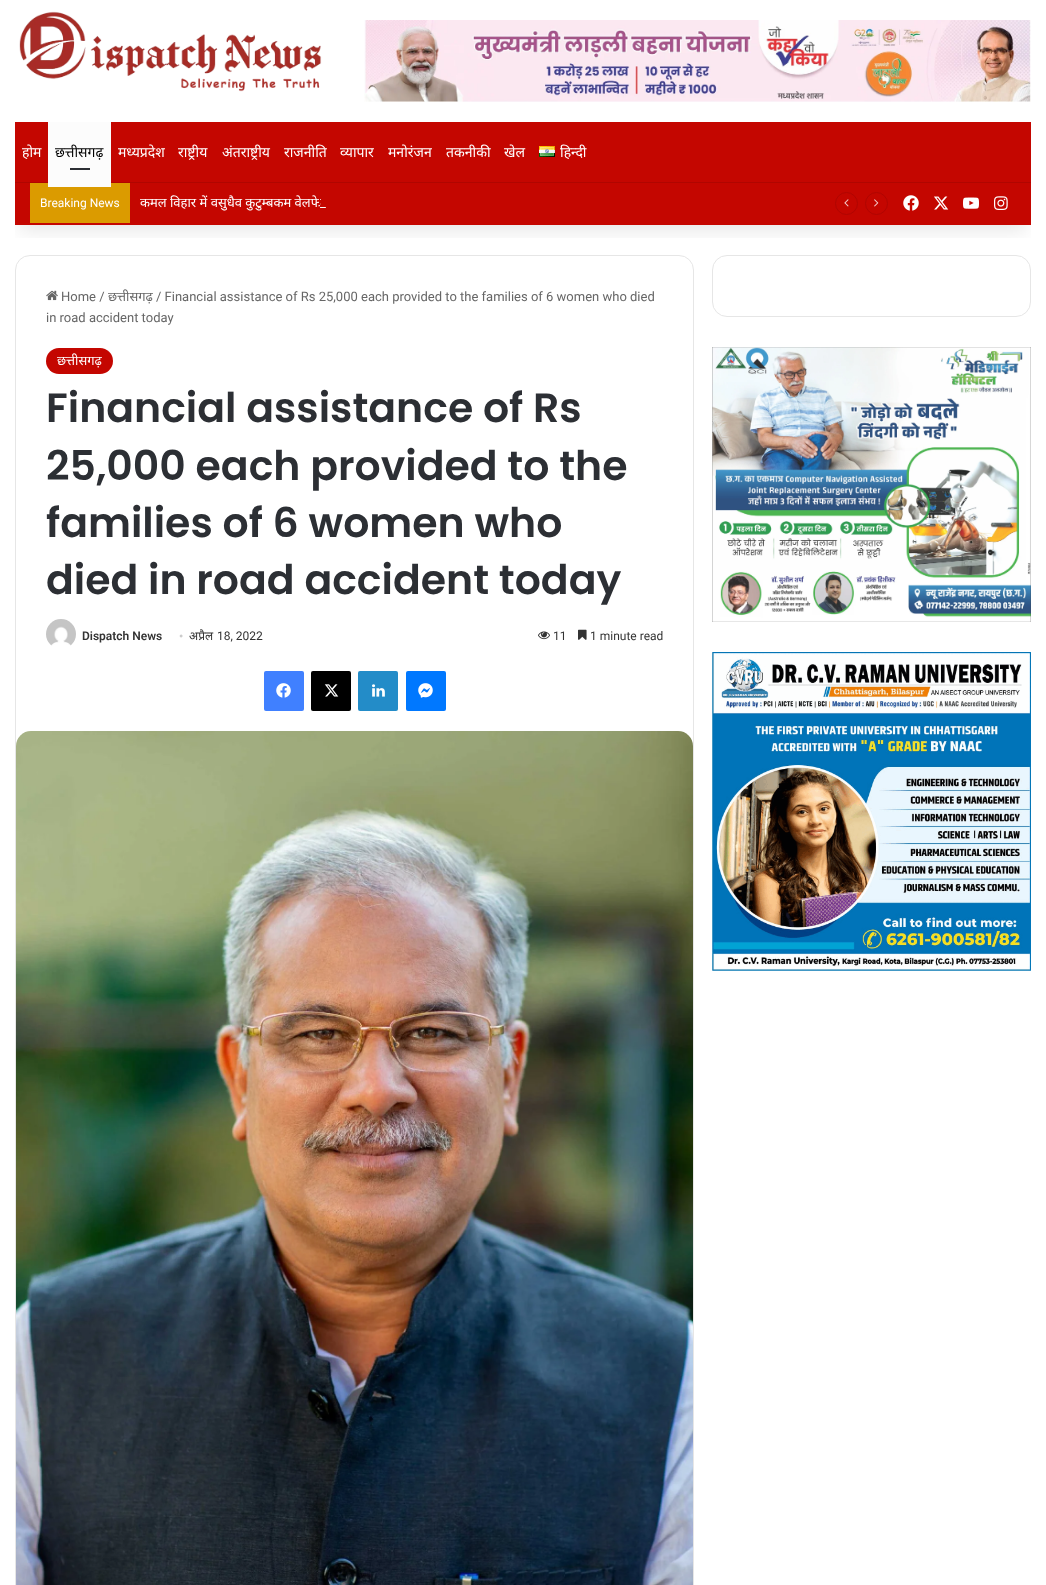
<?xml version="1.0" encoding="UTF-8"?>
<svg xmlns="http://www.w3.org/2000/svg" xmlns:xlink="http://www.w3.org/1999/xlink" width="1046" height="1585">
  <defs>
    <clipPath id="clip1"><rect x="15" y="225" width="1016" height="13" /></clipPath>
  </defs>
  <rect width="100%" height="100%" fill="#ffffff" />
  <rect x="15.5" y="255.5" width="678" height="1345" rx="14.5" fill="none" stroke="#e6e6e6" />
  <rect x="712.5" y="255.5" width="318" height="61" rx="14.5" fill="none" stroke="#e6e6e6" />
  <g clip-path="url(#clip1)">
    <rect x="20" y="45" width="1006" height="185" fill="#000000" fill-opacity="0.1" filter="blur(10px)" />
  </g>
  <image x="19" y="11" width="303" height="81" xlink:href="image1.png" />
  <image x="364" y="20" width="667" height="82" xlink:href="image2.png" />
  <rect x="15" y="122" width="1016" height="60" fill="#c40600" />
  <rect x="15" y="183" width="1016" height="42" fill="#c40600" />
  <rect x="15" y="182" width="1016" height="1" fill="#b00500" />
  <rect x="30" y="183" width="100" height="40" fill="#db9b00" />
  <rect x="48" y="122" width="63" height="65" fill="#fcfcfc" />
  <rect x="70" y="168" width="20" height="2" fill="#2c2f34" />
  <image x="539" y="146" width="16" height="11" xlink:href="image3.png" />
  <circle cx="846.5" cy="203.5" r="11" fill="none" stroke="#b00500" />
  <image x="844" y="199" width="5" height="8" xlink:href="image4.png" />
  <circle cx="876.5" cy="203.5" r="11" fill="none" stroke="#b00500" />
  <image x="874" y="199" width="5" height="8" xlink:href="image5.png" />
  <image x="903" y="195" width="16" height="16" xlink:href="image6.png" />
  <image x="934" y="196" width="15" height="14" xlink:href="image7.png" />
  <image x="963" y="197" width="16" height="12" xlink:href="image8.png" />
  <image x="994" y="196" width="14" height="14" xlink:href="image9.png" />
  <image x="46" y="290" width="12" height="11" xlink:href="image10.png" />
  <rect x="46" y="348" width="67" height="26" rx="13" fill="#c40600" />
  <image x="46" y="619" width="30" height="27" xlink:href="image11.png" />
  <image x="538" y="631" width="12" height="9" xlink:href="image12.png" />
  <image x="578" y="629" width="9" height="11" xlink:href="image13.png" />
  <rect x="264" y="671" width="40" height="40" rx="2" fill="#4080ff" />
  <image x="276" y="683" width="15" height="15" xlink:href="image14.png" />
  <rect x="311" y="671" width="40" height="40" rx="2" fill="#000000" />
  <image x="324" y="684" width="15" height="13" xlink:href="image15.png" />
  <rect x="358" y="671" width="40" height="40" rx="2" fill="#238cc8" />
  <image x="372" y="684" width="13" height="13" xlink:href="image16.png" />
  <rect x="406" y="671" width="40" height="40" rx="2" fill="#0078ff" />
  <image x="418" y="683" width="15" height="15" xlink:href="image17.png" />
  <image x="16" y="731" width="677" height="854" xlink:href="image18.png" />
  <image x="712" y="347" width="319" height="275" xlink:href="image19.png" />
  <image x="712" y="652" width="319" height="319" xlink:href="image20.png" />
  <text x="22" y="157" style="font-family: Noto Sans; font-size: 14px; fill: #ffffff">होम</text>
  <text x="55" y="157" style="font-family: Noto Sans; font-size: 14px; fill: #000000">छत्तीसगढ़</text>
  <text x="118" y="157" style="font-family: Noto Sans; font-size: 14px; fill: #ffffff">मध्यप्रदेश</text>
  <text x="178" y="157" style="font-family: Noto Sans; font-size: 14px; fill: #ffffff">राष्ट्रीय</text>
  <text x="222" y="157" style="font-family: Noto Sans; font-size: 14px; fill: #ffffff">अंतराष्ट्रीय</text>
  <text x="284" y="157" style="font-family: Noto Sans; font-size: 14px; fill: #ffffff">राजनीति</text>
  <text x="340" y="157" style="font-family: Noto Sans; font-size: 14px; fill: #ffffff">व्यापार</text>
  <text x="388" y="157" style="font-family: Noto Sans; font-size: 14px; fill: #ffffff">मनोरंजन</text>
  <text x="446" y="157" style="font-family: Noto Sans; font-size: 14px; fill: #ffffff">तकनीकी</text>
  <text x="504" y="157" style="font-family: Noto Sans; font-size: 14px; fill: #ffffff">खेल</text>
  <text x="560" y="157" style="font-family: Noto Sans; font-size: 14px; fill: #ffffff">हिन्दी</text>
  <text x="40" y="207" style="font-family: Roboto; font-size: 12px; fill: #ffffff">Breaking News</text>
  <text x="140" y="207" style="font-family: Noto Sans; font-size: 13px; fill: #ffffff">कमल विहार में वसुधैव कुटुम्बकम वेलफे</text>
  <rect x="319" y="198" width="1" height="7" fill="#c40600" />
  <text x="320" y="207" style="font-family: Roboto; font-size: 13px; fill: #ffffff">_</text>
  <text x="61" y="301" style="font-family: Roboto; font-size: 13px; fill: #666666">Home /</text>
  <text x="108" y="301" style="font-family: Noto Sans; font-size: 13px; fill: #666666">छत्तीसगढ़</text>
  <text x="156" y="301" style="font-family: Roboto; font-size: 13px; fill: #666666">/ Financial assistance of Rs 25,000 each provided to the families of 6 women who died</text>
  <text x="46" y="322" style="font-family: Roboto; font-size: 13px; fill: #666666">in road accident today</text>
  <text x="57" y="365" style="font-family: Noto Sans; font-size: 13px; fill: #ffffff">छत्तीसगढ़</text>
  <text x="46" y="422" style="font-family: Poppins; font-size: 41px; font-weight: 600; fill: #2c2f34">Financial assistance of Rs</text>
  <text x="46" y="480" style="font-family: Poppins; font-size: 41px; font-weight: 600; fill: #2c2f34">25,000 each provided to the</text>
  <text x="46" y="537" style="font-family: Poppins; font-size: 41px; font-weight: 600; fill: #2c2f34">families of 6 women who</text>
  <text x="46" y="594" style="font-family: Poppins; font-size: 41px; font-weight: 600; fill: #2c2f34">died in road accident today</text>
  <text x="82" y="640" style="font-family: Roboto; font-size: 12px; font-weight: 600; fill: #333333">Dispatch News</text>
  <text x="179" y="640" style="font-family: Liberation Serif; font-size: 12px; fill: #cccccc">•</text>
  <text x="189" y="640" style="font-family: Noto Sans; font-size: 12px; fill: #333333">अप्रैल</text>
  <text x="217" y="640" style="font-family: Roboto; font-size: 12px; fill: #333333">18, 2022</text>
  <text x="553" y="640" style="font-family: Roboto; font-size: 12px; fill: #333333">11</text>
  <text x="590" y="640" style="font-family: Roboto; font-size: 12px; fill: #333333">1 minute read</text>
</svg>
